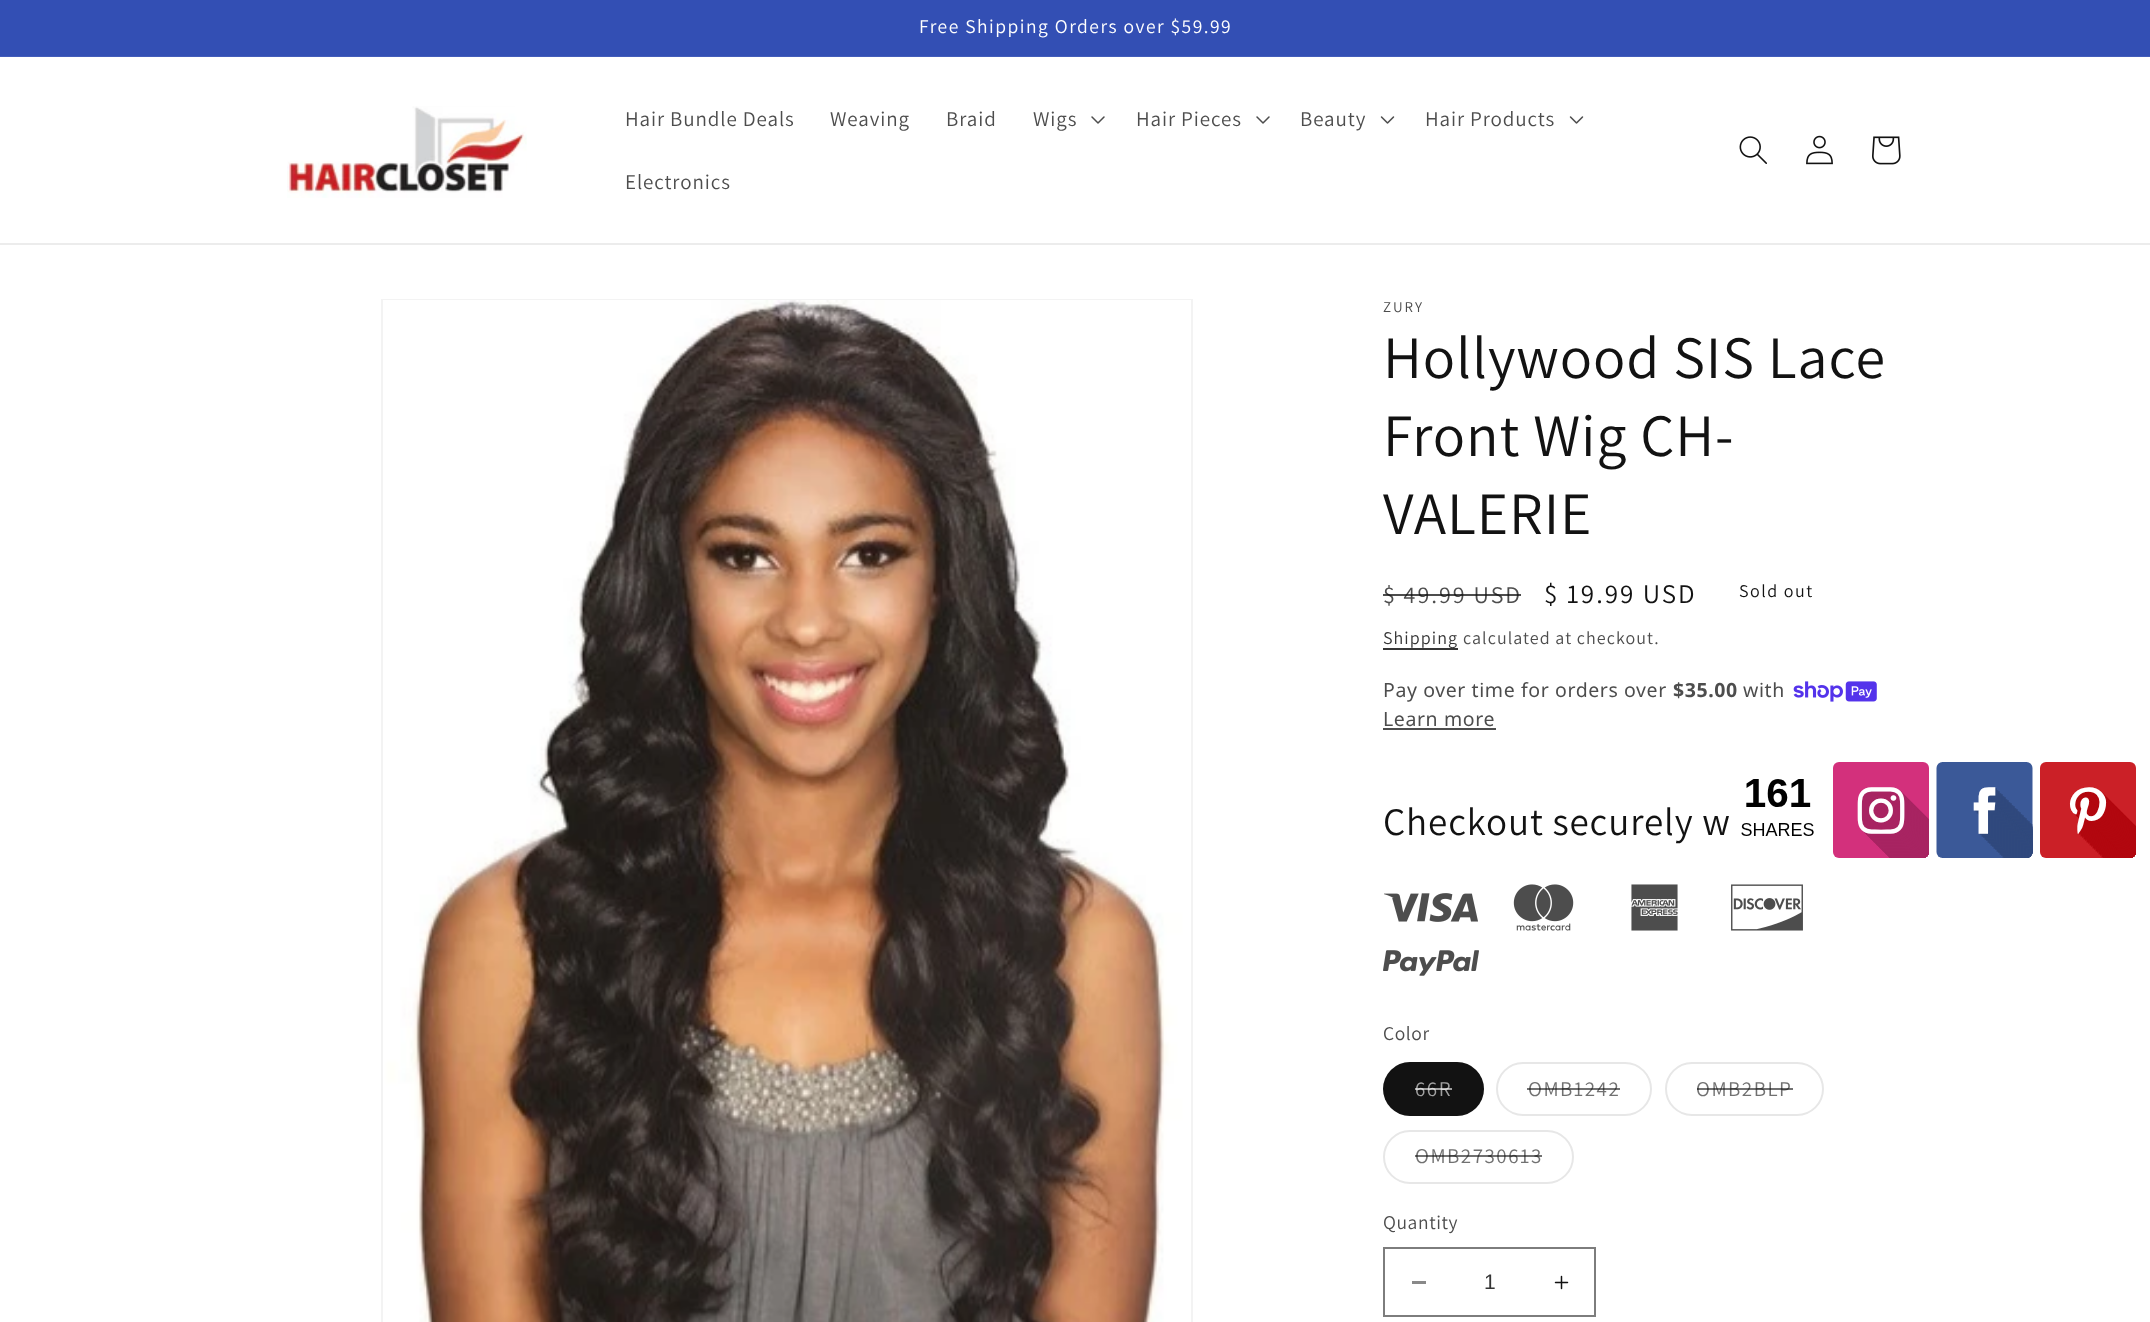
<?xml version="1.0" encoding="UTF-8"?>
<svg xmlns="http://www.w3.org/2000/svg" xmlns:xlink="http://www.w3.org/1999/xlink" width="2150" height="1322">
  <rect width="100%" height="100%" fill="#ffffff" />
  <rect width="2150" height="56" fill="#334fb4" />
  <rect y="56" width="2150" height="1" fill="#435dba" />
  <rect y="243" width="2150" height="2" fill="#ececec" />
  <image x="287" y="106" width="240" height="92" xlink:href="image1.png" />
  <image x="1091" y="116" width="14" height="8" xlink:href="image2.png" />
  <image x="1256" y="116" width="14" height="8" xlink:href="image2.png" />
  <image x="1380" y="116" width="15" height="8" xlink:href="image3.png" />
  <image x="1569" y="116" width="15" height="8" xlink:href="image3.png" />
  <image x="1739" y="136" width="28" height="28" xlink:href="image4.png" />
  <image x="1806" y="135" width="27" height="30" xlink:href="image5.png" />
  <image x="1872" y="136" width="29" height="29" xlink:href="image6.png" />
  <rect x="382" y="300" width="810" height="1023" fill="none" stroke="#f3f3f3" stroke-width="2" />
  <image x="383" y="300" width="808" height="1022" xlink:href="image7.png" />
  <rect x="1383" y="648" width="75" height="2" fill="#363636" />
  <image x="1793" y="681" width="84" height="21" xlink:href="image8.png" />
  <rect x="1383" y="728" width="113" height="2" fill="#4d4d4d" />
  <image x="1384" y="893" width="94" height="29" xlink:href="image9.png" />
  <image x="1513" y="884" width="61" height="47" xlink:href="image10.png" />
  <image x="1631" y="884" width="47" height="47" xlink:href="image11.png" />
  <image x="1731" y="884" width="72" height="47" xlink:href="image12.png" />
  <image x="1383" y="950" width="96" height="26" xlink:href="image13.png" />
  <rect x="1383" y="1062" width="101" height="54" rx="27" fill="#121212" />
  <rect x="1384" y="1063" width="99" height="52" rx="26" fill="none" stroke="#121212" stroke-opacity="0.1" stroke-width="2" />
  <rect x="1497" y="1063" width="154" height="52" rx="26" fill="none" stroke="#e7e7e7" stroke-width="2" />
  <rect x="1666" y="1063" width="157" height="52" rx="26" fill="none" stroke="#e7e7e7" stroke-width="2" />
  <rect x="1384" y="1131" width="189" height="52" rx="26" fill="none" stroke="#e7e7e7" stroke-width="2" />
  <rect x="1412" y="1281" width="14" height="3" fill="#898989" />
  <image x="1554" y="1275" width="15" height="15" xlink:href="image14.png" />
  <rect x="1384" y="1248" width="211" height="68" fill="none" stroke="#7d7d7d" stroke-width="2" />
  <image x="1733" y="762" width="403" height="96" xlink:href="image15.png" />
  <text x="919" y="33" style="font-family: Assistant; font-size: 19.5px; letter-spacing: 1.5px; fill: #ffffff">Free Shipping Orders over $59.99</text>
  <text x="625" y="126" style="font-family: Assistant; font-size: 21px; letter-spacing: 0.9px; fill: #4d4d4d">Hair Bundle Deals</text>
  <text x="830" y="126" style="font-family: Assistant; font-size: 21px; letter-spacing: 0.9px; fill: #4d4d4d">Weaving</text>
  <text x="946" y="126" style="font-family: Assistant; font-size: 21px; letter-spacing: 0.9px; fill: #4d4d4d">Braid</text>
  <text x="1033" y="126" style="font-family: Assistant; font-size: 21px; letter-spacing: 0.9px; fill: #4d4d4d">Wigs</text>
  <text x="1136" y="126" style="font-family: Assistant; font-size: 21px; letter-spacing: 0.9px; fill: #4d4d4d">Hair Pieces</text>
  <text x="1300" y="126" style="font-family: Assistant; font-size: 21px; letter-spacing: 0.9px; fill: #4d4d4d">Beauty</text>
  <text x="1425" y="126" style="font-family: Assistant; font-size: 21px; letter-spacing: 0.9px; fill: #4d4d4d">Hair Products</text>
  <text x="625" y="189" style="font-family: Assistant; font-size: 21px; letter-spacing: 0.9px; fill: #4d4d4d">Electronics</text>
  <text x="1383" y="312" style="font-family: Assistant; font-size: 15px; letter-spacing: 2px; fill: #4d4d4d">ZURY</text>
  <text x="1383" y="378" style="font-family: Assistant; font-size: 60px; letter-spacing: 0.9px; fill: #121212">Hollywood SIS Lace</text>
  <text x="1383" y="456" style="font-family: Assistant; font-size: 60px; letter-spacing: 0.9px; fill: #121212">Front Wig CH-</text>
  <text x="1383" y="534" style="font-family: Assistant; font-size: 60px; letter-spacing: 0.9px; fill: #121212">VALERIE</text>
  <text x="1383" y="603" style="font-family: Assistant; font-size: 24px; letter-spacing: 2px; fill: #4d4d4d">$ 49.99 USD</text>
  <rect x="1383" y="594" width="138" height="2" fill="#121212" fill-opacity="0.75" />
  <text x="1544" y="603" style="font-family: Assistant; font-size: 27px; letter-spacing: 2px; fill: #121212">$ 19.99 USD</text>
  <text x="1739" y="597" style="font-family: Assistant; font-size: 18px; letter-spacing: 1.5px; fill: #121212">Sold out</text>
  <text x="1383" y="644" style="font-family: Assistant; font-size: 18px; letter-spacing: 1.05px; fill: #353535">Shipping</text>
  <text x="1463" y="644" style="font-family: Assistant; font-size: 18px; letter-spacing: 1.05px; fill: #4d4d4d">calculated at checkout.</text>
  <text x="1383" y="697" style="font-family: Noto Sans; font-size: 19.5px; letter-spacing: 0.6px; fill: #4d4d4d">Pay over time for orders over</text>
  <text x="1673" y="697" style="font-family: Noto Sans; font-size: 19.5px; font-weight: bold; letter-spacing: 0.6px; fill: #4d4d4d">$35.00</text>
  <text x="1743" y="697" style="font-family: Noto Sans; font-size: 19.5px; letter-spacing: 0.6px; fill: #4d4d4d">with</text>
  <text x="1383" y="726" style="font-family: Noto Sans; font-size: 19.5px; letter-spacing: 0.6px; fill: #4d4d4d">Learn more</text>
  <text x="1383" y="835" style="font-family: Assistant; font-size: 39px; letter-spacing: 0.9px; fill: #121212">Checkout securely w</text>
  <text x="1383" y="1040" style="font-family: Assistant; font-size: 19.5px; letter-spacing: 0.6px; fill: #4d4d4d">Color</text>
  <text x="1415" y="1096" style="font-family: Assistant; font-size: 21px; letter-spacing: 1.5px; fill: #a0a0a0">66R</text>
  <rect x="1415" y="1088" width="37" height="2" fill="#ffffff" fill-opacity="0.6" />
  <text x="1528" y="1096" style="font-family: Assistant; font-size: 21px; letter-spacing: 1.5px; fill: #717171">OMB1242</text>
  <rect x="1527" y="1088" width="93" height="2" fill="#121212" fill-opacity="0.6" />
  <text x="1696" y="1096" style="font-family: Assistant; font-size: 21px; letter-spacing: 1.5px; fill: #717171">OMB2BLP</text>
  <rect x="1697" y="1088" width="96" height="2" fill="#121212" fill-opacity="0.6" />
  <text x="1415" y="1163" style="font-family: Assistant; font-size: 21px; letter-spacing: 1.5px; fill: #717171">OMB2730613</text>
  <rect x="1415" y="1155" width="127" height="2" fill="#121212" fill-opacity="0.6" />
  <text x="1383" y="1229" style="font-family: Assistant; font-size: 19.5px; letter-spacing: 0.6px; fill: #4d4d4d">Quantity</text>
  <text x="1484" y="1289" style="font-family: Liberation Sans; font-size: 21px; fill: #353535">1</text>
</svg>
